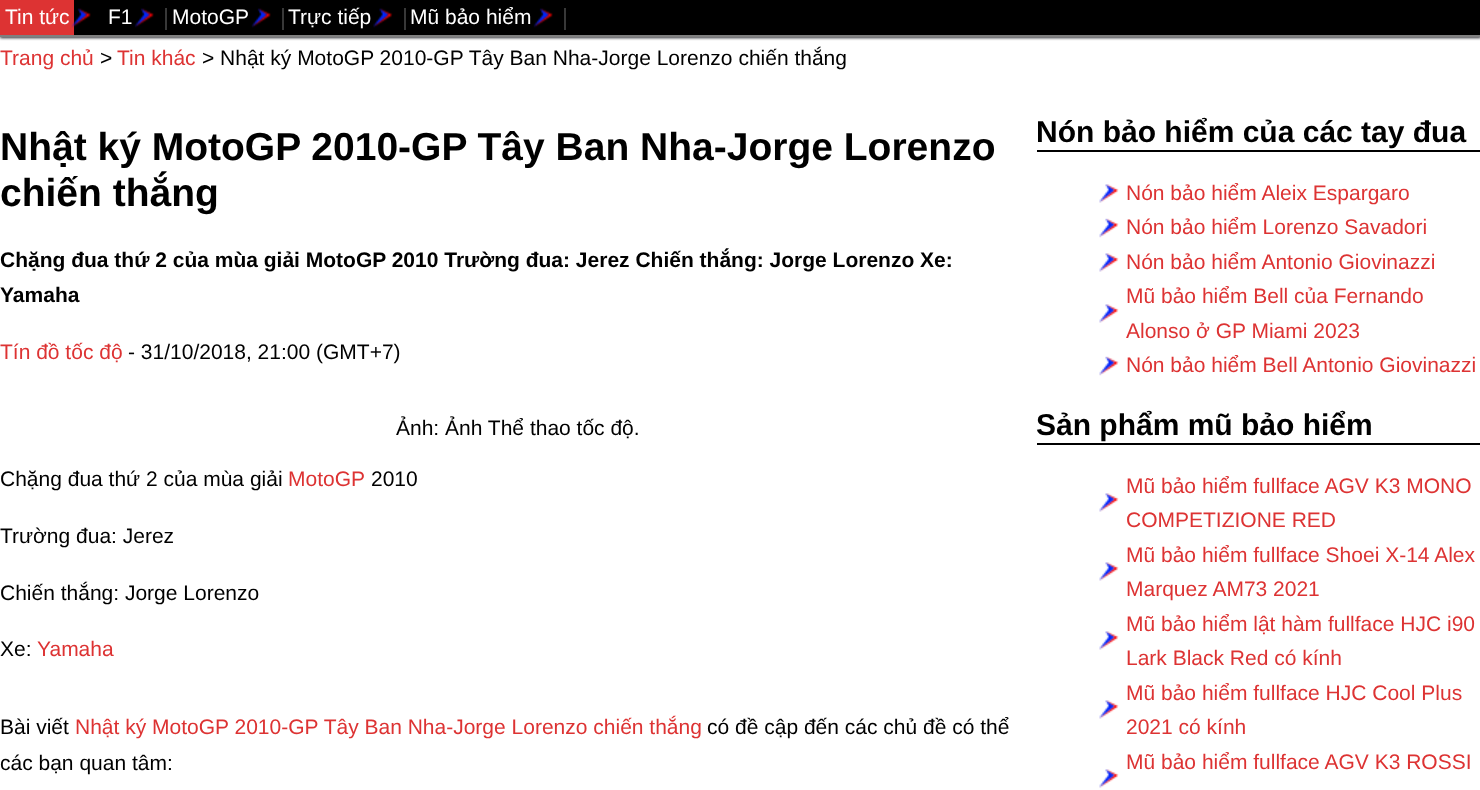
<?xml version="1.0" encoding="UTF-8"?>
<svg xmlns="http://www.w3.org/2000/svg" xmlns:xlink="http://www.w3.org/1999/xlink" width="1480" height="790">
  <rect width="100%" height="100%" fill="#ffffff" />
  <rect y="2" width="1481" height="36" fill="#292a30" filter="blur(1.5px)" />
  <rect x="74" width="1406" height="35" fill="#000000" />
  <rect y="35" width="1480" height="2" fill="#7f7f7f" />
  <rect width="74" height="35" fill="#dd3333" />
  <image x="71" y="8" width="20" height="20" xlink:href="image1.png" />
  <image x="134" y="8" width="20" height="20" xlink:href="image2.png" />
  <rect x="165" y="8" width="2" height="22" fill="#383838" />
  <image x="251" y="8" width="20" height="20" xlink:href="image2.png" />
  <rect x="282" y="8" width="2" height="22" fill="#383838" />
  <image x="373" y="8" width="20" height="20" xlink:href="image3.png" />
  <rect x="404" y="8" width="2" height="22" fill="#383838" />
  <image x="533" y="8" width="20" height="20" xlink:href="image2.png" />
  <rect x="564" y="8" width="2" height="22" fill="#383838" />
  <rect x="1037" y="150" width="443" height="2" fill="#000000" />
  <image x="1099" y="184" width="20" height="19" xlink:href="image4.png" />
  <image x="1099" y="218" width="20" height="20" xlink:href="image5.png" />
  <image x="1099" y="253" width="20" height="19" xlink:href="image4.png" />
  <image x="1099" y="304" width="20" height="19" xlink:href="image4.png" />
  <image x="1099" y="356" width="20" height="20" xlink:href="image5.png" />
  <rect x="1037" y="443" width="443" height="2" fill="#000000" />
  <image x="1099" y="493" width="20" height="19" xlink:href="image4.png" />
  <image x="1099" y="562" width="20" height="19" xlink:href="image4.png" />
  <image x="1099" y="631" width="20" height="19" xlink:href="image4.png" />
  <image x="1099" y="700" width="20" height="19" xlink:href="image4.png" />
  <image x="1099" y="769" width="20" height="19" xlink:href="image4.png" />
  <text x="5" y="24" style="font-family: Liberation Sans; font-size: 21px; fill: #ffffff">Tin tức</text>
  <text x="108" y="24" style="font-family: Liberation Sans; font-size: 21px; fill: #ffffff">F1</text>
  <text x="172" y="24" style="font-family: Liberation Sans; font-size: 21px; fill: #ffffff">MotoGP</text>
  <text x="288" y="24" style="font-family: Liberation Sans; font-size: 21px; fill: #ffffff">Trực tiếp</text>
  <text x="410" y="24" style="font-family: Liberation Sans; font-size: 21px; fill: #ffffff">Mũ bảo hiểm</text>
  <text x="0" y="65" style="font-family: Liberation Sans; font-size: 21px; fill: #dd3333">Trang chủ</text>
  <text x="100" y="65" style="font-family: Liberation Sans; font-size: 21px; fill: #000000">&gt;</text>
  <text x="117" y="65" style="font-family: Liberation Sans; font-size: 21px; fill: #dd3333">Tin khác</text>
  <text x="202" y="65" style="font-family: Liberation Sans; font-size: 21px; fill: #000000">&gt; Nhật ký MotoGP 2010-GP Tây Ban Nha-Jorge Lorenzo chiến thắng</text>
  <text x="0" y="160" style="font-family: Liberation Sans; font-size: 39px; font-weight: bold; fill: #000000">Nhật ký MotoGP 2010-GP Tây Ban Nha-Jorge Lorenzo</text>
  <text x="0" y="206" style="font-family: Liberation Sans; font-size: 39px; font-weight: bold; fill: #000000">chiến thắng</text>
  <text x="0" y="267" style="font-family: Liberation Sans; font-size: 21px; font-weight: bold; fill: #000000">Chặng đua thứ 2 của mùa giải MotoGP 2010 Trường đua: Jerez Chiến thắng: Jorge Lorenzo Xe:</text>
  <text x="0" y="302" style="font-family: Liberation Sans; font-size: 21px; font-weight: bold; fill: #000000">Yamaha</text>
  <text x="0" y="359" style="font-family: Liberation Sans; font-size: 21px; fill: #dd3333">Tín đồ tốc độ</text>
  <text x="128" y="359" style="font-family: Liberation Sans; font-size: 21px; fill: #000000">- 31/10/2018, 21:00 (GMT+7)</text>
  <text x="396" y="435" style="font-family: Liberation Sans; font-size: 21px; fill: #000000">Ảnh: Ảnh Thể thao tốc độ.</text>
  <text x="0" y="486" style="font-family: Liberation Sans; font-size: 21px; fill: #000000">Chặng đua thứ 2 của mùa giải</text>
  <text x="288" y="486" style="font-family: Liberation Sans; font-size: 21px; fill: #dd3333">MotoGP</text>
  <text x="371" y="486" style="font-family: Liberation Sans; font-size: 21px; fill: #000000">2010</text>
  <text x="0" y="543" style="font-family: Liberation Sans; font-size: 21px; fill: #000000">Trường đua: Jerez</text>
  <text x="0" y="600" style="font-family: Liberation Sans; font-size: 21px; fill: #000000">Chiến thắng: Jorge Lorenzo</text>
  <text x="0" y="656" style="font-family: Liberation Sans; font-size: 21px; fill: #000000">Xe:</text>
  <text x="37" y="656" style="font-family: Liberation Sans; font-size: 21px; fill: #dd3333">Yamaha</text>
  <text x="0" y="734" style="font-family: Liberation Sans; font-size: 21px; fill: #000000">Bài viết</text>
  <text x="75" y="734" style="font-family: Liberation Sans; font-size: 21px; fill: #dd3333">Nhật ký MotoGP 2010-GP Tây Ban Nha-Jorge Lorenzo chiến thắng</text>
  <text x="707" y="734" style="font-family: Liberation Sans; font-size: 21px; fill: #000000">có đề cập đến các chủ đề có thể</text>
  <text x="0" y="770" style="font-family: Liberation Sans; font-size: 21px; fill: #000000">các bạn quan tâm:</text>
  <text x="1036" y="142" style="font-family: Liberation Sans; font-size: 30px; font-weight: bold; fill: #000000">Nón bảo hiểm của các tay đua</text>
  <text x="1126" y="200" style="font-family: Liberation Sans; font-size: 21px; fill: #dd3333">Nón bảo hiểm Aleix Espargaro</text>
  <text x="1126" y="234" style="font-family: Liberation Sans; font-size: 21px; fill: #dd3333">Nón bảo hiểm Lorenzo Savadori</text>
  <text x="1126" y="269" style="font-family: Liberation Sans; font-size: 21px; fill: #dd3333">Nón bảo hiểm Antonio Giovinazzi</text>
  <text x="1126" y="303" style="font-family: Liberation Sans; font-size: 21px; fill: #dd3333">Mũ bảo hiểm Bell của Fernando</text>
  <text x="1126" y="338" style="font-family: Liberation Sans; font-size: 21px; fill: #dd3333">Alonso ở GP Miami 2023</text>
  <text x="1126" y="372" style="font-family: Liberation Sans; font-size: 21px; fill: #dd3333">Nón bảo hiểm Bell Antonio Giovinazzi</text>
  <text x="1036" y="435" style="font-family: Liberation Sans; font-size: 30px; font-weight: bold; fill: #000000">Sản phẩm mũ bảo hiểm</text>
  <text x="1126" y="493" style="font-family: Liberation Sans; font-size: 21px; fill: #dd3333">Mũ bảo hiểm fullface AGV K3 MONO</text>
  <text x="1126" y="527" style="font-family: Liberation Sans; font-size: 21px; fill: #dd3333">COMPETIZIONE RED</text>
  <text x="1126" y="562" style="font-family: Liberation Sans; font-size: 21px; fill: #dd3333">Mũ bảo hiểm fullface Shoei X-14 Alex</text>
  <text x="1126" y="596" style="font-family: Liberation Sans; font-size: 21px; fill: #dd3333">Marquez AM73 2021</text>
  <text x="1126" y="631" style="font-family: Liberation Sans; font-size: 21px; fill: #dd3333">Mũ bảo hiểm lật hàm fullface HJC i90</text>
  <text x="1126" y="665" style="font-family: Liberation Sans; font-size: 21px; fill: #dd3333">Lark Black Red có kính</text>
  <text x="1126" y="700" style="font-family: Liberation Sans; font-size: 21px; fill: #dd3333">Mũ bảo hiểm fullface HJC Cool Plus</text>
  <text x="1126" y="734" style="font-family: Liberation Sans; font-size: 21px; fill: #dd3333">2021 có kính</text>
  <text x="1126" y="769" style="font-family: Liberation Sans; font-size: 21px; fill: #dd3333">Mũ bảo hiểm fullface AGV K3 ROSSI</text>
</svg>
